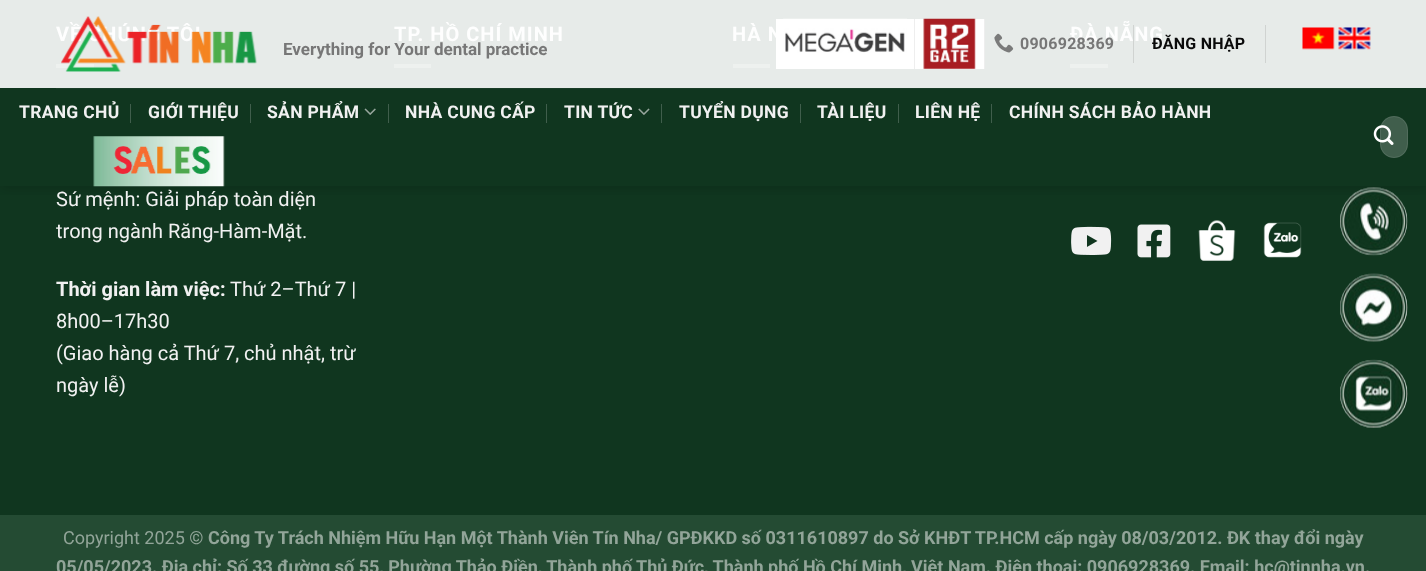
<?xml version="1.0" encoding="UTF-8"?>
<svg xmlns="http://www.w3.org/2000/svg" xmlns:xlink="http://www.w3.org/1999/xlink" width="1426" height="571">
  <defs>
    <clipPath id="clip1"><rect x="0" y="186" width="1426" height="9" /></clipPath>
  </defs>
  <rect width="100%" height="100%" fill="#10361f" />
  <rect width="1426" height="88" fill="#e7ebe9" />
  <rect x="56" y="64" width="38" height="4" fill="#eef1ef" />
  <rect x="394" y="64" width="37" height="4" fill="#eef1ef" />
  <rect x="733" y="64" width="37" height="4" fill="#eef1ef" />
  <rect x="1070" y="64" width="38" height="4" fill="#eef1ef" />
  <image x="1071" y="226" width="41" height="29" xlink:href="image1.png" />
  <image x="1137" y="224" width="34" height="34" xlink:href="image2.png" />
  <image x="1198" y="220" width="38" height="41" xlink:href="image3.png" />
  <image x="1263" y="222" width="39" height="36" xlink:href="image4.png" />
  <rect y="515" width="1426" height="56" fill="#244b33" />
  <g clip-path="url(#clip1)">
    <rect x="1" y="1" width="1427" height="187" fill="#000000" fill-opacity="0.15" filter="blur(6px)" />
  </g>
  <rect x="984" y="19" width="1" height="50" fill="#eeeeee" />
  <image x="994" y="33" width="20" height="20" xlink:href="image8.png" />
  <rect x="1265" y="25" width="1" height="38" fill="#d0d3d1" />
  <image x="1302" y="27" width="33" height="23" xlink:href="image9.png" />
  <image x="1338" y="27" width="33" height="23" xlink:href="image10.png" />
  <rect x="56" y="88" width="1314" height="1" fill="#1a3d28" />
  <rect x="130" y="104" width="1" height="19" fill="#405e4c" />
  <rect x="250" y="104" width="1" height="19" fill="#405e4c" />
  <image x="364" y="108" width="12" height="7" xlink:href="image11.png" />
  <rect x="388" y="104" width="1" height="19" fill="#405e4c" />
  <rect x="546" y="104" width="1" height="19" fill="#405e4c" />
  <image x="638" y="108" width="12" height="7" xlink:href="image12.png" />
  <rect x="661" y="104" width="1" height="19" fill="#405e4c" />
  <rect x="800" y="104" width="1" height="19" fill="#405e4c" />
  <rect x="898" y="104" width="1" height="19" fill="#405e4c" />
  <rect x="991" y="104" width="1" height="19" fill="#405e4c" />
  <image x="93" y="136" width="132" height="51" xlink:href="image13.png" />
  <rect x="1380" y="116" width="28" height="42" rx="14" fill="#405e4c" />
  <rect x="1380.5" y="116.5" width="27" height="41" rx="13.5" fill="none" stroke="#ffffff" stroke-opacity="0.09" />
  <image x="1373" y="125" width="21" height="20" xlink:href="image14.png" />
  <image x="1340" y="187" width="68" height="69" xlink:href="image15.png" />
  <image x="1340" y="273" width="68" height="69" xlink:href="image16.png" />
  <image x="1340" y="359" width="68" height="69" xlink:href="image17.png" />
  <text x="56" y="41" style="font-family: Roboto; font-size: 20px; font-weight: bold; letter-spacing: 1px; fill: #fefefe">VỀ CHÚNG TÔI</text>
  <text x="56" y="206" style="font-family: Roboto; font-size: 20px; fill: #f1f1f1">Sứ mệnh: Giải pháp toàn diện</text>
  <text x="56" y="238" style="font-family: Roboto; font-size: 20px; fill: #f1f1f1">trong ngành Răng-Hàm-Mặt.</text>
  <text x="56" y="296" style="font-family: Roboto; font-size: 20px; font-weight: bold; fill: #f1f1f1">Thời gian làm việc:</text>
  <text x="230" y="296" style="font-family: Roboto; font-size: 20px; fill: #f1f1f1">Thứ 2–Thứ 7 |</text>
  <text x="56" y="328" style="font-family: Roboto; font-size: 20px; fill: #f1f1f1">8h00–17h30</text>
  <text x="56" y="360" style="font-family: Roboto; font-size: 20px; fill: #f1f1f1">(Giao hàng cả Thứ 7, chủ nhật, trừ</text>
  <text x="56" y="392" style="font-family: Roboto; font-size: 20px; fill: #f1f1f1">ngày lễ)</text>
  <text x="394" y="41" style="font-family: Roboto; font-size: 20px; font-weight: bold; letter-spacing: 1px; fill: #fefefe">TP. HỒ CHÍ MINH</text>
  <text x="732" y="41" style="font-family: Roboto; font-size: 20px; font-weight: bold; letter-spacing: 1px; fill: #fefefe">HÀ N</text>
  <text x="1070" y="41" style="font-family: Roboto; font-size: 20px; font-weight: bold; letter-spacing: 1px; fill: #fefefe">ĐÀ NẴNG</text>
  <text x="63" y="544" style="font-family: Roboto; font-size: 18px; fill: #92a599">Copyright 2025 ©</text>
  <text x="208" y="544" style="font-family: Roboto; font-size: 18px; font-weight: bold; fill: #92a599">Công Ty Trách Nhiệm Hữu Hạn Một Thành Viên Tín Nha/ GPĐKKD số 0311610897 do Sở KHĐT TP.HCM cấp ngày 08/03/2012. ĐK thay đổi ngày</text>
  <text x="56" y="573" style="font-family: Roboto; font-size: 18px; font-weight: bold; fill: #92a599">05/05/2023. Địa chỉ: Số 33 đường số 55, Phường Thảo Điền, Thành phố Thủ Đức, Thành phố Hồ Chí Minh, Việt Nam. Điện thoại: 0906928369. Email: hc@tinnha.vn.</text>
  <image x="61" y="16" width="196" height="56" xlink:href="image5.png" />
  <text x="283" y="55" style="font-family: Roboto; font-size: 17px; font-weight: bold; fill: #777777">Everything for Your dental practice</text>
  <rect x="776" y="19" width="208" height="50" fill="#ffffff" />
  <rect x="914" y="19" width="1" height="50" fill="#eeeeee" />
  <image x="783" y="18" width="124" height="35" xlink:href="image6.png" />
  <image x="923" y="18" width="53" height="51" xlink:href="image7.png" />
  <text x="1020" y="49" style="font-family: Roboto; font-size: 16px; font-weight: bold; letter-spacing: 0.25px; fill: #777777">0906928369</text>
  <rect x="1133" y="25" width="1" height="38" fill="#d0d3d1" />
  <text x="1152" y="49" style="font-family: Roboto; font-size: 16px; font-weight: bold; letter-spacing: 0.25px; fill: #0a0a0a">ĐĂNG NHẬP</text>
  <text x="19" y="118" style="font-family: Roboto; font-size: 17.5px; font-weight: bold; letter-spacing: 0.3px; fill: #f1f1f1">TRANG CHỦ</text>
  <text x="148" y="118" style="font-family: Roboto; font-size: 17.5px; font-weight: bold; letter-spacing: 0.3px; fill: #f1f1f1">GIỚI THIỆU</text>
  <text x="267" y="118" style="font-family: Roboto; font-size: 17.5px; font-weight: bold; letter-spacing: 0.3px; fill: #f1f1f1">SẢN PHẨM</text>
  <text x="405" y="118" style="font-family: Roboto; font-size: 17.5px; font-weight: bold; letter-spacing: 0.3px; fill: #f1f1f1">NHÀ CUNG CẤP</text>
  <text x="564" y="118" style="font-family: Roboto; font-size: 17.5px; font-weight: bold; letter-spacing: 0.3px; fill: #f1f1f1">TIN TỨC</text>
  <text x="679" y="118" style="font-family: Roboto; font-size: 17.5px; font-weight: bold; letter-spacing: 0.3px; fill: #f1f1f1">TUYỂN DỤNG</text>
  <text x="817" y="118" style="font-family: Roboto; font-size: 17.5px; font-weight: bold; letter-spacing: 0.3px; fill: #f1f1f1">TÀI LIỆU</text>
  <text x="915" y="118" style="font-family: Roboto; font-size: 17.5px; font-weight: bold; letter-spacing: 0.3px; fill: #f1f1f1">LIÊN HỆ</text>
  <text x="1009" y="118" style="font-family: Roboto; font-size: 17.5px; font-weight: bold; letter-spacing: 0.3px; fill: #f1f1f1">CHÍNH SÁCH BẢO HÀNH</text>
</svg>
